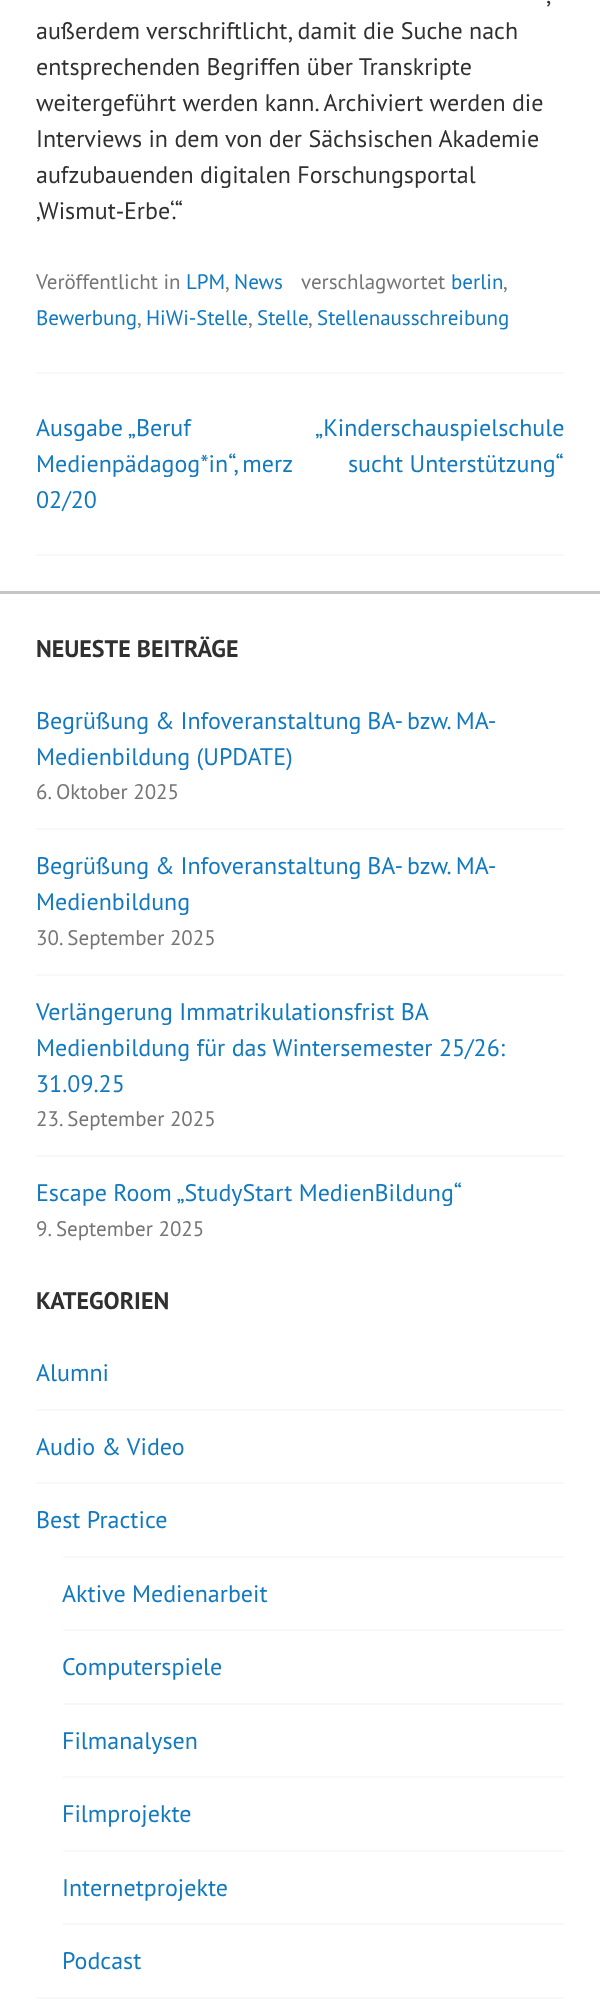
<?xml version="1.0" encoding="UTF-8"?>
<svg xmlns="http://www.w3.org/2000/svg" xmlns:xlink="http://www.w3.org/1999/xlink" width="600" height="2014">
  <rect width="100%" height="100%" fill="#ffffff" />
  <rect x="36" y="372" width="528" height="2" fill="#f8f8f8" />
  <rect x="36" y="554" width="528" height="2" fill="#f8f8f8" />
  <rect y="591" width="600" height="3" fill="#c5c5c5" />
  <rect x="36" y="828" width="528" height="2" fill="#f8f8f8" />
  <rect x="36" y="974" width="528" height="2" fill="#f8f8f8" />
  <rect x="36" y="1155" width="528" height="2" fill="#f8f8f8" />
  <rect x="36" y="1409" width="528" height="2" fill="#f8f8f8" />
  <rect x="36" y="1482" width="528" height="2" fill="#f8f8f8" />
  <rect x="63" y="1556" width="501" height="2" fill="#f8f8f8" />
  <rect x="63" y="1629" width="501" height="2" fill="#f8f8f8" />
  <rect x="63" y="1703" width="501" height="2" fill="#f8f8f8" />
  <rect x="63" y="1776" width="501" height="2" fill="#f8f8f8" />
  <rect x="63" y="1850" width="501" height="2" fill="#f8f8f8" />
  <rect x="63" y="1923" width="501" height="2" fill="#f8f8f8" />
  <rect x="36" y="1997" width="528" height="2" fill="#f8f8f8" />
  <text x="546" y="3" word-spacing="-1" style="font-family: PT Sans; font-size: 24px; fill: #303030">,</text>
  <text x="36" y="39" style="font-family: PT Sans; font-size: 24px; fill: #303030">außerdem verschriftlicht, damit die Suche nach</text>
  <text x="36" y="75" style="font-family: PT Sans; font-size: 24px; fill: #303030">entsprechenden Begriffen über Transkripte</text>
  <text x="36" y="111" style="font-family: PT Sans; font-size: 24px; fill: #303030">weitergeführt werden kann. Archiviert werden die</text>
  <text x="36" y="147" style="font-family: PT Sans; font-size: 24px; fill: #303030">Interviews in dem von der Sächsischen Akademie</text>
  <text x="36" y="183" style="font-family: PT Sans; font-size: 24px; fill: #303030">aufzubauenden digitalen Forschungsportal</text>
  <text x="36" y="219" style="font-family: PT Sans; font-size: 24px; fill: #303030">‚Wismut</text>
  <text x="116" y="219" style="font-family: Liberation Sans; font-size: 24px; fill: #303030">‐</text>
  <text x="124" y="219" style="font-family: PT Sans; font-size: 24px; fill: #303030">Erbe‘.“</text>
  <text x="36" y="289" style="font-family: PT Sans; font-size: 21px; fill: #757575">Veröffentlicht in</text>
  <text x="186" y="289" style="font-family: PT Sans; font-size: 21px; fill: #1279be">LPM</text>
  <text x="225" y="289" style="font-family: PT Sans; font-size: 21px; fill: #757575">,</text>
  <text x="234" y="289" style="font-family: PT Sans; font-size: 21px; fill: #1279be">News</text>
  <text x="301" y="289" style="font-family: PT Sans; font-size: 21px; fill: #757575">verschlagwortet</text>
  <text x="451" y="289" style="font-family: PT Sans; font-size: 21px; fill: #1279be">berlin</text>
  <text x="503" y="289" style="font-family: PT Sans; font-size: 21px; fill: #757575">,</text>
  <text x="36" y="325" style="font-family: PT Sans; font-size: 21px; fill: #1279be">Bewerbung</text>
  <text x="137" y="325" style="font-family: PT Sans; font-size: 21px; fill: #757575">,</text>
  <text x="146" y="325" style="font-family: PT Sans; font-size: 21px; fill: #1279be">HiWi-Stelle</text>
  <text x="248" y="325" style="font-family: PT Sans; font-size: 21px; fill: #757575">,</text>
  <text x="257" y="325" style="font-family: PT Sans; font-size: 21px; fill: #1279be">Stelle</text>
  <text x="308" y="325" style="font-family: PT Sans; font-size: 21px; fill: #757575">,</text>
  <text x="317" y="325" style="font-family: PT Sans; font-size: 21px; fill: #1279be">Stellenausschreibung</text>
  <text x="36" y="436" style="font-family: PT Sans; font-size: 24px; fill: #1279be">Ausgabe „Beruf</text>
  <text x="36" y="472" word-spacing="-1" style="font-family: PT Sans; font-size: 24px; fill: #1279be">Medienpädagog*in“, merz</text>
  <text x="36" y="508" style="font-family: PT Sans; font-size: 24px; fill: #1279be">02/20</text>
  <text x="315" y="436" style="font-family: PT Sans; font-size: 24px; fill: #1279be">„Kinderschauspielschule</text>
  <text x="348" y="472" style="font-family: PT Sans; font-size: 24px; fill: #1279be">sucht Unterstützung“</text>
  <text x="36" y="657" style="font-family: PT Sans; font-size: 24px; font-weight: bold; fill: #303030">NEUESTE BEITRÄGE</text>
  <text x="36" y="729" word-spacing="-0.5" style="font-family: PT Sans; font-size: 24px; fill: #1279be">Begrüßung &amp; Infoveranstaltung BA- bzw. MA-</text>
  <text x="36" y="765" style="font-family: PT Sans; font-size: 24px; fill: #1279be">Medienbildung (UPDATE)</text>
  <text x="36" y="799" style="font-family: PT Sans; font-size: 21px; fill: #757575">6. Oktober 2025</text>
  <text x="36" y="874" word-spacing="-0.5" style="font-family: PT Sans; font-size: 24px; fill: #1279be">Begrüßung &amp; Infoveranstaltung BA- bzw. MA-</text>
  <text x="36" y="910" style="font-family: PT Sans; font-size: 24px; fill: #1279be">Medienbildung</text>
  <text x="36" y="945" style="font-family: PT Sans; font-size: 21px; fill: #757575">30. September 2025</text>
  <text x="36" y="1020" style="font-family: PT Sans; font-size: 24px; fill: #1279be">Verlängerung Immatrikulationsfrist BA</text>
  <text x="36" y="1056" style="font-family: PT Sans; font-size: 24px; fill: #1279be">Medienbildung für das Wintersemester 25/26:</text>
  <text x="36" y="1092" style="font-family: PT Sans; font-size: 24px; fill: #1279be">31.09.25</text>
  <text x="36" y="1126" style="font-family: PT Sans; font-size: 21px; fill: #757575">23. September 2025</text>
  <text x="36" y="1201" style="font-family: PT Sans; font-size: 24px; fill: #1279be">Escape Room „StudyStart MedienBildung“</text>
  <text x="36" y="1236" style="font-family: PT Sans; font-size: 21px; fill: #757575">9. September 2025</text>
  <text x="36" y="1309" style="font-family: PT Sans; font-size: 24px; font-weight: bold; fill: #303030">KATEGORIEN</text>
  <text x="36" y="1381" style="font-family: PT Sans; font-size: 24px; fill: #1279be">Alumni</text>
  <text x="36" y="1455" style="font-family: PT Sans; font-size: 24px; fill: #1279be">Audio &amp; Video</text>
  <text x="36" y="1528" style="font-family: PT Sans; font-size: 24px; fill: #1279be">Best Practice</text>
  <text x="62" y="1602" style="font-family: PT Sans; font-size: 24px; fill: #1279be">Aktive Medienarbeit</text>
  <text x="62" y="1675" style="font-family: PT Sans; font-size: 24px; fill: #1279be">Computerspiele</text>
  <text x="62" y="1749" style="font-family: PT Sans; font-size: 24px; fill: #1279be">Filmanalysen</text>
  <text x="62" y="1822" style="font-family: PT Sans; font-size: 24px; fill: #1279be">Filmprojekte</text>
  <text x="62" y="1896" style="font-family: PT Sans; font-size: 24px; fill: #1279be">Internetprojekte</text>
  <text x="62" y="1969" style="font-family: PT Sans; font-size: 24px; fill: #1279be">Podcast</text>
</svg>
